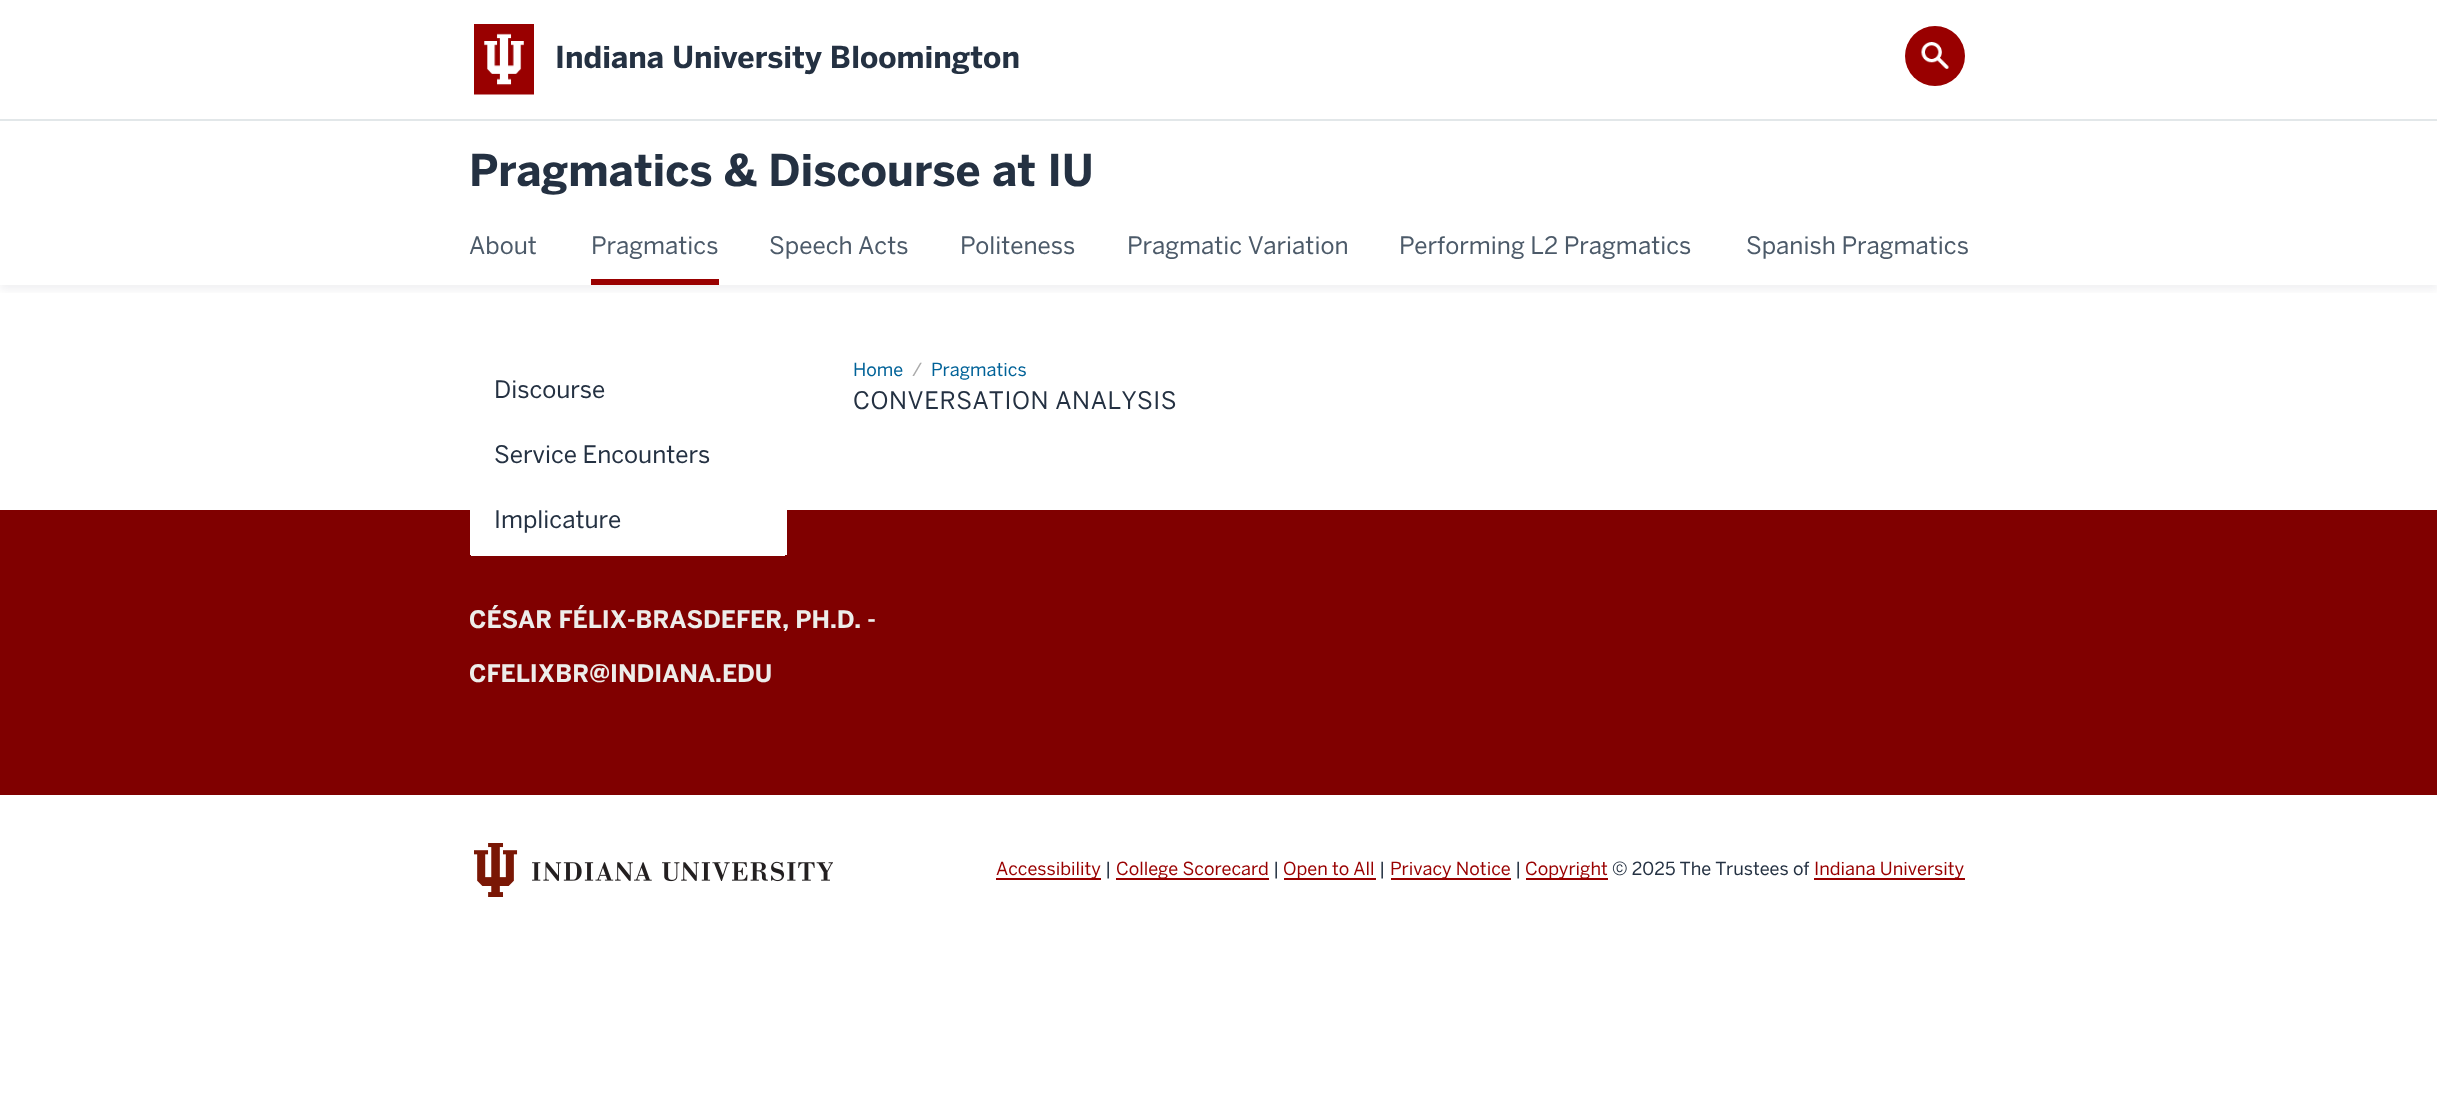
<?xml version="1.0" encoding="UTF-8"?>
<svg xmlns="http://www.w3.org/2000/svg" xmlns:xlink="http://www.w3.org/1999/xlink" width="2437" height="1101">
  <defs>
    <clipPath id="clip1"><rect x="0" y="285" width="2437" height="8" /></clipPath>
  </defs>
  <rect width="100%" height="100%" fill="#ffffff" />
  <rect y="119" width="2437" height="2" fill="#e2e7e9" />
  <image x="474" y="24" width="60" height="71" xlink:href="image1.png" />
  <circle cx="1935" cy="56" r="30" fill="#990000" />
  <image x="1921" y="42" width="28" height="27" xlink:href="image2.png" />
  <g clip-path="url(#clip1)">
    <rect y="213" width="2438" height="77" fill="#243142" fill-opacity="0.07" filter="blur(4.5px)" />
  </g>
  <rect x="591" y="279" width="128" height="6" fill="#990000" />
  <rect y="510" width="2437" height="285" fill="#800000" />
  <rect x="470" y="510" width="317" height="45" fill="#ffffff" />
  <rect x="471" y="555" width="314" height="1" fill="#ffffff" />
  <image x="474" y="843" width="359" height="54" xlink:href="image3.png" />
  <rect x="996" y="878" width="105" height="2" fill="#990000" />
  <rect x="1116" y="878" width="153" height="2" fill="#990000" />
  <rect x="1284" y="878" width="92" height="2" fill="#990000" />
  <rect x="1391" y="878" width="120" height="2" fill="#990000" />
  <rect x="1526" y="878" width="82" height="2" fill="#990000" />
  <rect x="1814" y="878" width="151" height="2" fill="#990000" />
  <text x="555" y="68" style="font-family: 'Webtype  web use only'; font-size: 30px; font-weight: bold; fill: #243142">Indiana University Bloomington</text>
  <text x="469" y="186" style="font-family: 'Webtype  web use only'; font-size: 43.5px; font-weight: bold; fill: #243142">Pragmatics &amp; Discourse at IU</text>
  <text x="469" y="254" style="font-family: 'Webtype  web use only'; font-size: 24px; fill: #4c5a69">About</text>
  <text x="591" y="254" style="font-family: 'Webtype  web use only'; font-size: 24px; fill: #4c5a69">Pragmatics</text>
  <text x="769" y="254" style="font-family: 'Webtype  web use only'; font-size: 24px; fill: #4c5a69">Speech Acts</text>
  <text x="960" y="254" style="font-family: 'Webtype  web use only'; font-size: 24px; fill: #4c5a69">Politeness</text>
  <text x="1127" y="254" style="font-family: 'Webtype  web use only'; font-size: 24px; fill: #4c5a69">Pragmatic Variation</text>
  <text x="1399" y="254" style="font-family: 'Webtype  web use only'; font-size: 24px; fill: #4c5a69">Performing L2 Pragmatics</text>
  <text x="1746" y="254" style="font-family: 'Webtype  web use only'; font-size: 24px; fill: #4c5a69">Spanish Pragmatics</text>
  <text x="494" y="398" style="font-family: 'Webtype  web use only'; font-size: 24px; fill: #243142">Discourse</text>
  <text x="494" y="463" style="font-family: 'Webtype  web use only'; font-size: 24px; fill: #243142">Service Encounters</text>
  <text x="494" y="528" style="font-family: 'Webtype  web use only'; font-size: 24px; fill: #243142">Implicature</text>
  <text x="853" y="376" style="font-family: 'Webtype  web use only'; font-size: 18px; fill: #006298">Home</text>
  <text x="912" y="376" style="font-family: 'Webtype  web use only'; font-size: 18px; fill: #aaaaaa">/</text>
  <text x="931" y="376" style="font-family: 'Webtype  web use only'; font-size: 18px; fill: #006298">Pragmatics</text>
  <text x="853" y="409" style="font-family: 'Webtype  web use only'; font-size: 24px; letter-spacing: 0.6px; fill: #243142">CONVERSATION ANALYSIS</text>
  <text x="469" y="628" style="font-family: 'Webtype  web use only'; font-size: 24px; font-weight: bold; fill: #ededea">CÉSAR FÉLIX-BRASDEFER, PH.D. -</text>
  <text x="469" y="682" style="font-family: 'Webtype  web use only'; font-size: 24px; font-weight: bold; fill: #ededea">CFELIXBR@INDIANA.EDU</text>
  <text x="996" y="875" style="font-family: 'Webtype  web use only'; font-size: 18px; fill: #990000">Accessibility</text>
  <text x="1105" y="875" style="font-family: 'Webtype  web use only'; font-size: 18px; fill: #243142">|</text>
  <text x="1116" y="875" style="font-family: 'Webtype  web use only'; font-size: 18px; fill: #990000">College Scorecard</text>
  <text x="1273" y="875" style="font-family: 'Webtype  web use only'; font-size: 18px; fill: #243142">|</text>
  <text x="1283" y="875" style="font-family: 'Webtype  web use only'; font-size: 18px; fill: #990000">Open to All</text>
  <text x="1379" y="875" style="font-family: 'Webtype  web use only'; font-size: 18px; fill: #243142">|</text>
  <text x="1390" y="875" style="font-family: 'Webtype  web use only'; font-size: 18px; fill: #990000">Privacy Notice</text>
  <text x="1515" y="875" style="font-family: 'Webtype  web use only'; font-size: 18px; fill: #243142">|</text>
  <text x="1525" y="875" style="font-family: 'Webtype  web use only'; font-size: 18px; fill: #990000">Copyright</text>
  <text x="1612" y="875" style="font-family: 'Webtype  web use only'; font-size: 18px; fill: #243142">© 2025 The Trustees of</text>
  <text x="1814" y="875" style="font-family: 'Webtype  web use only'; font-size: 18px; fill: #990000">Indiana University</text>
</svg>
